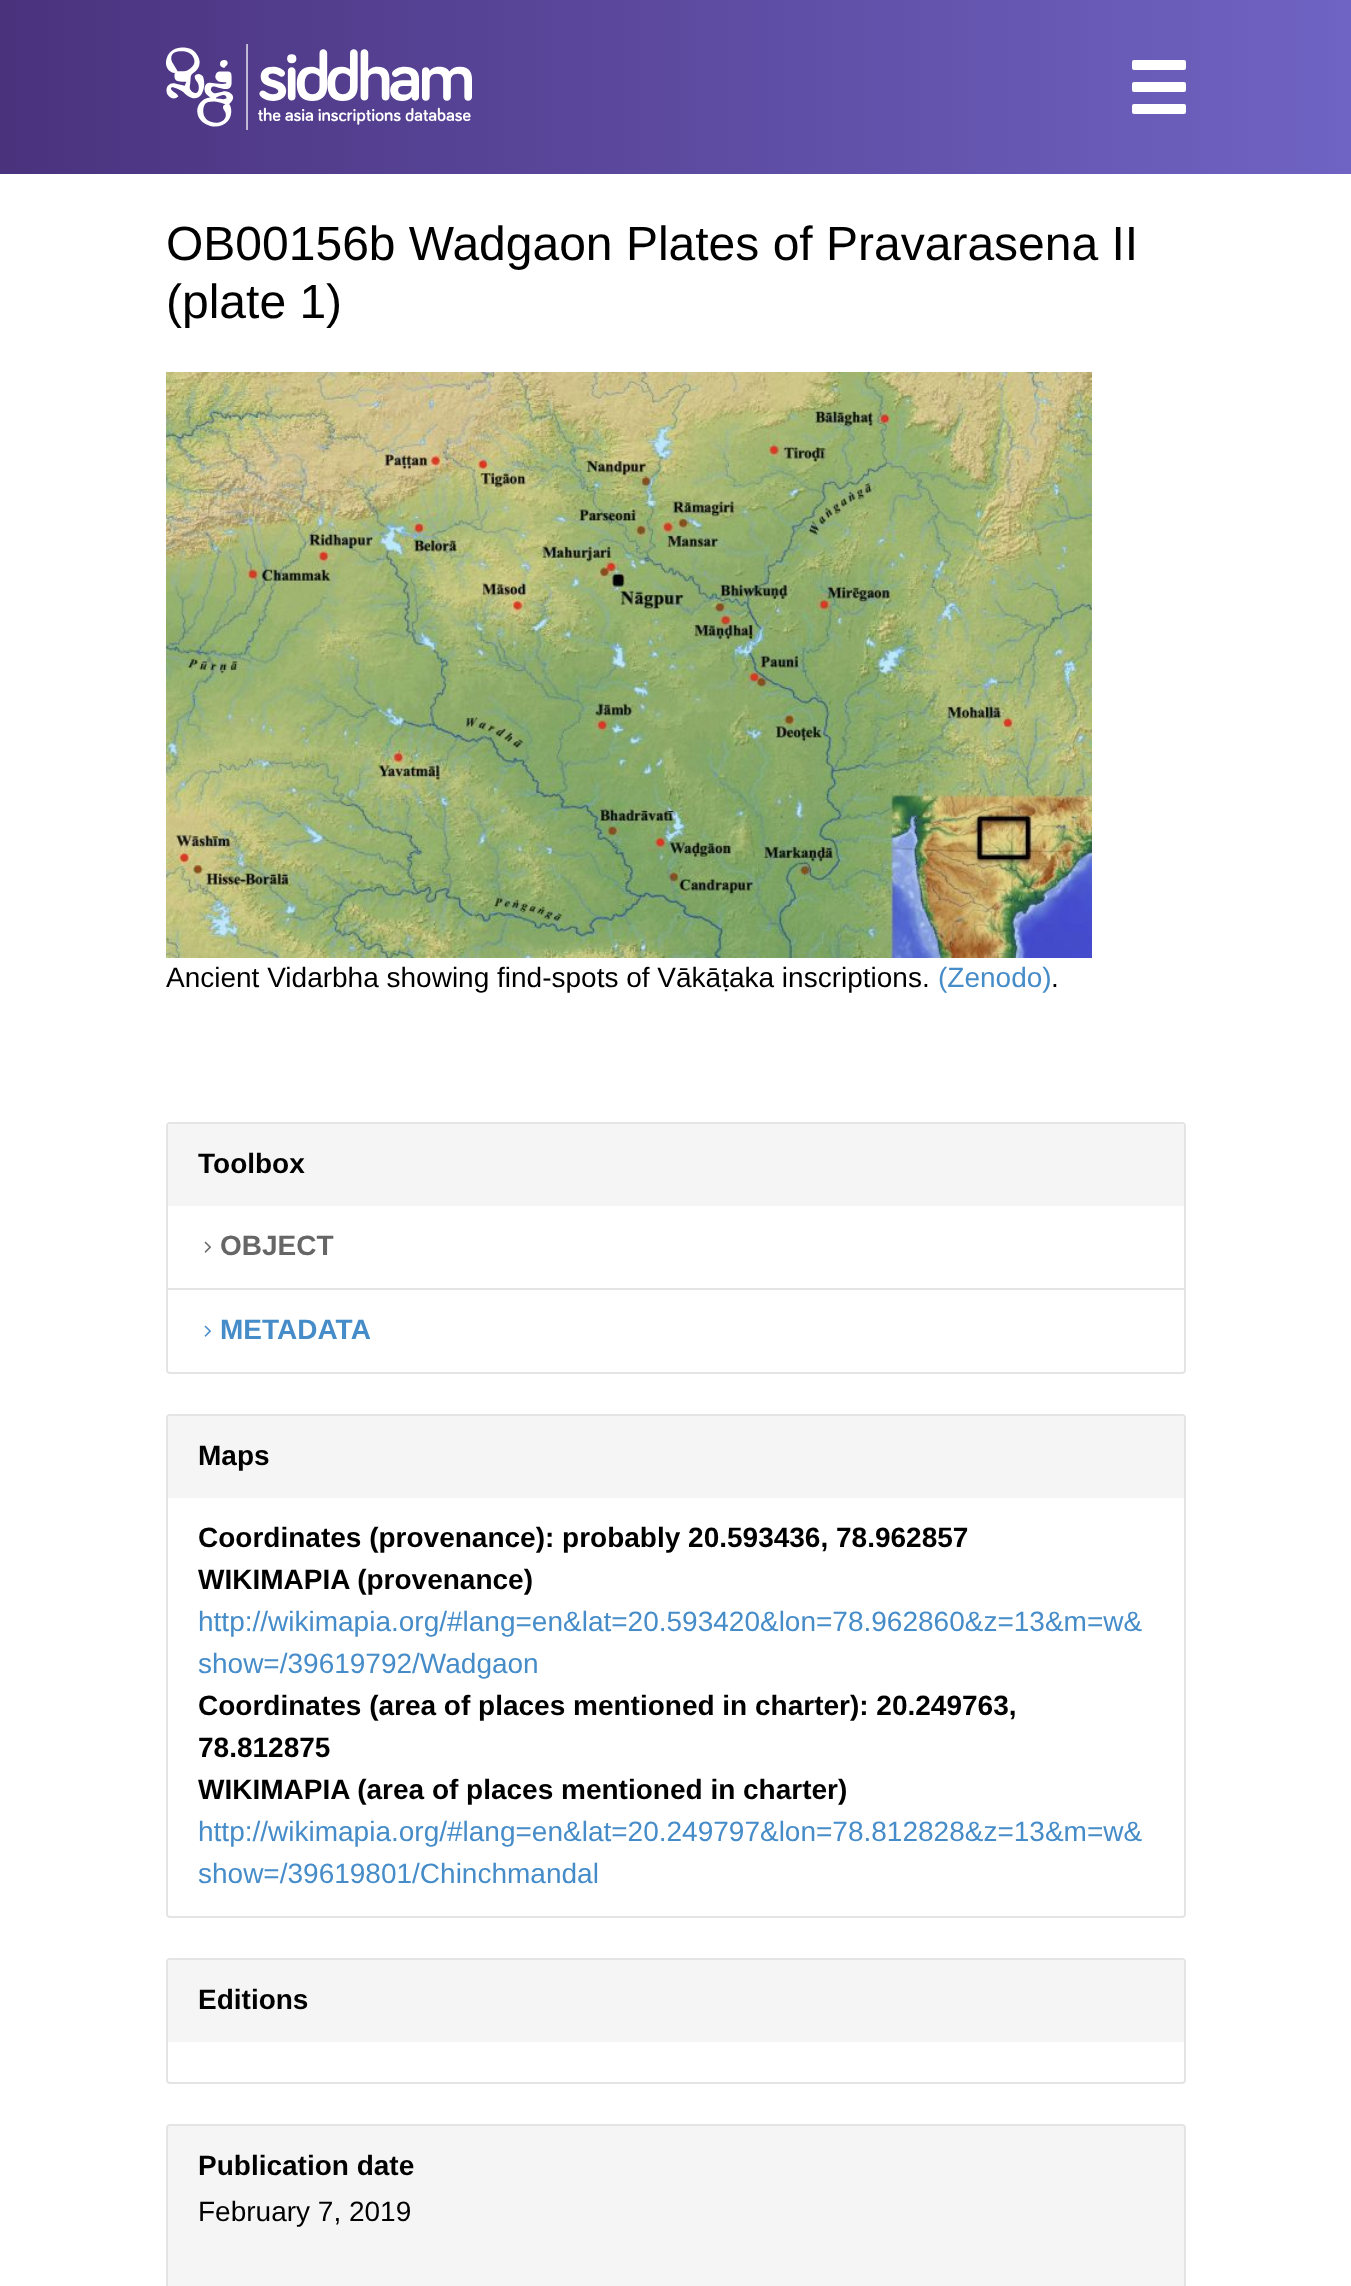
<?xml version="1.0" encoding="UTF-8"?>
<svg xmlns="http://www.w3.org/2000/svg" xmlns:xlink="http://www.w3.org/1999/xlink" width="1351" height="2286">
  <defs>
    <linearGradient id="g1" gradientUnits="userSpaceOnUse" x1="0" y1="87" x2="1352" y2="87"><stop offset="0" stop-color="#4a327d" /><stop offset="1" stop-color="#6f63c3" /></linearGradient>
  </defs>
  <rect width="100%" height="100%" fill="#ffffff" />
  <rect width="1351" height="174" fill="url(#g1)" />
  <image x="166" y="44" width="306" height="86" xlink:href="image1.png" />
  <rect x="1132" y="60" width="54" height="10" rx="2" fill="#ffffff" />
  <rect x="1132" y="82" width="54" height="10" rx="2" fill="#ffffff" />
  <rect x="1132" y="104" width="54" height="10" rx="2" fill="#ffffff" />
  <image x="166" y="372" width="926" height="586" xlink:href="image2.png" />
  <rect x="167" y="1123" width="1018" height="250" rx="3" fill="none" stroke="#e4e4e4" stroke-width="2" />
  <rect x="168" y="1124" width="1016" height="82" fill="#f5f5f5" />
  <image x="204" y="1241" width="7" height="12" xlink:href="image3.png" />
  <rect x="168" y="1288" width="1016" height="2" fill="#e4e4e4" />
  <image x="204" y="1325" width="7" height="12" xlink:href="image4.png" />
  <rect x="167" y="1415" width="1018" height="502" rx="3" fill="none" stroke="#e4e4e4" stroke-width="2" />
  <rect x="168" y="1416" width="1016" height="82" fill="#f5f5f5" />
  <rect x="167" y="1959" width="1018" height="124" rx="3" fill="none" stroke="#e4e4e4" stroke-width="2" />
  <rect x="168" y="1960" width="1016" height="82" fill="#f5f5f5" />
  <rect x="167" y="2125" width="1018" height="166" rx="3" fill="#f5f5f5" stroke="#e4e4e4" stroke-width="2" />
  <text x="166" y="260" style="font-family: Liberation Sans; font-size: 48px; fill: #000000">OB00156b Wadgaon Plates of Pravarasena II</text>
  <text x="166" y="318" style="font-family: Liberation Sans; font-size: 48px; fill: #000000">(plate 1)</text>
  <text x="166" y="987" style="font-family: Liberation Sans; font-size: 28px; fill: #000000">Ancient Vidarbha showing find-spots of Vākāṭaka inscriptions.</text>
  <text x="938" y="987" style="font-family: Liberation Sans; font-size: 28px; fill: #468cc8">(Zenodo)</text>
  <text x="1051" y="987" style="font-family: Liberation Sans; font-size: 28px; fill: #000000">.</text>
  <text x="198" y="1173" style="font-family: Liberation Sans; font-size: 28px; font-weight: bold; fill: #000000">Toolbox</text>
  <text x="220" y="1255" style="font-family: Liberation Sans; font-size: 28px; font-weight: bold; fill: #666666">OBJECT</text>
  <text x="220" y="1339" style="font-family: Liberation Sans; font-size: 28px; font-weight: bold; fill: #468cc8">METADATA</text>
  <text x="198" y="1465" style="font-family: Liberation Sans; font-size: 28px; font-weight: bold; fill: #000000">Maps</text>
  <text x="198" y="1547" style="font-family: Liberation Sans; font-size: 28px; font-weight: bold; fill: #000000">Coordinates (provenance): probably 20.593436, 78.962857</text>
  <text x="198" y="1589" style="font-family: Liberation Sans; font-size: 28px; font-weight: bold; fill: #000000">WIKIMAPIA (provenance)</text>
  <text x="198" y="1631" style="font-family: Liberation Sans; font-size: 28px; fill: #468cc8">http://wikimapia.org/#lang=en&amp;lat=20.593420&amp;lon=78.962860&amp;z=13&amp;m=w&amp;</text>
  <text x="198" y="1673" style="font-family: Liberation Sans; font-size: 28px; fill: #468cc8">show=/39619792/Wadgaon</text>
  <text x="198" y="1715" style="font-family: Liberation Sans; font-size: 28px; font-weight: bold; fill: #000000">Coordinates (area of places mentioned in charter): 20.249763,</text>
  <text x="198" y="1757" style="font-family: Liberation Sans; font-size: 28px; font-weight: bold; fill: #000000">78.812875</text>
  <text x="198" y="1799" style="font-family: Liberation Sans; font-size: 28px; font-weight: bold; fill: #000000">WIKIMAPIA (area of places mentioned in charter)</text>
  <text x="198" y="1841" style="font-family: Liberation Sans; font-size: 28px; fill: #468cc8">http://wikimapia.org/#lang=en&amp;lat=20.249797&amp;lon=78.812828&amp;z=13&amp;m=w&amp;</text>
  <text x="198" y="1883" style="font-family: Liberation Sans; font-size: 28px; fill: #468cc8">show=/39619801/Chinchmandal</text>
  <text x="198" y="2009" style="font-family: Liberation Sans; font-size: 28px; font-weight: bold; fill: #000000">Editions</text>
  <text x="198" y="2175" style="font-family: Liberation Sans; font-size: 28px; font-weight: bold; fill: #000000">Publication date</text>
  <text x="198" y="2221" style="font-family: Liberation Sans; font-size: 28px; fill: #000000">February 7, 2019</text>
</svg>
